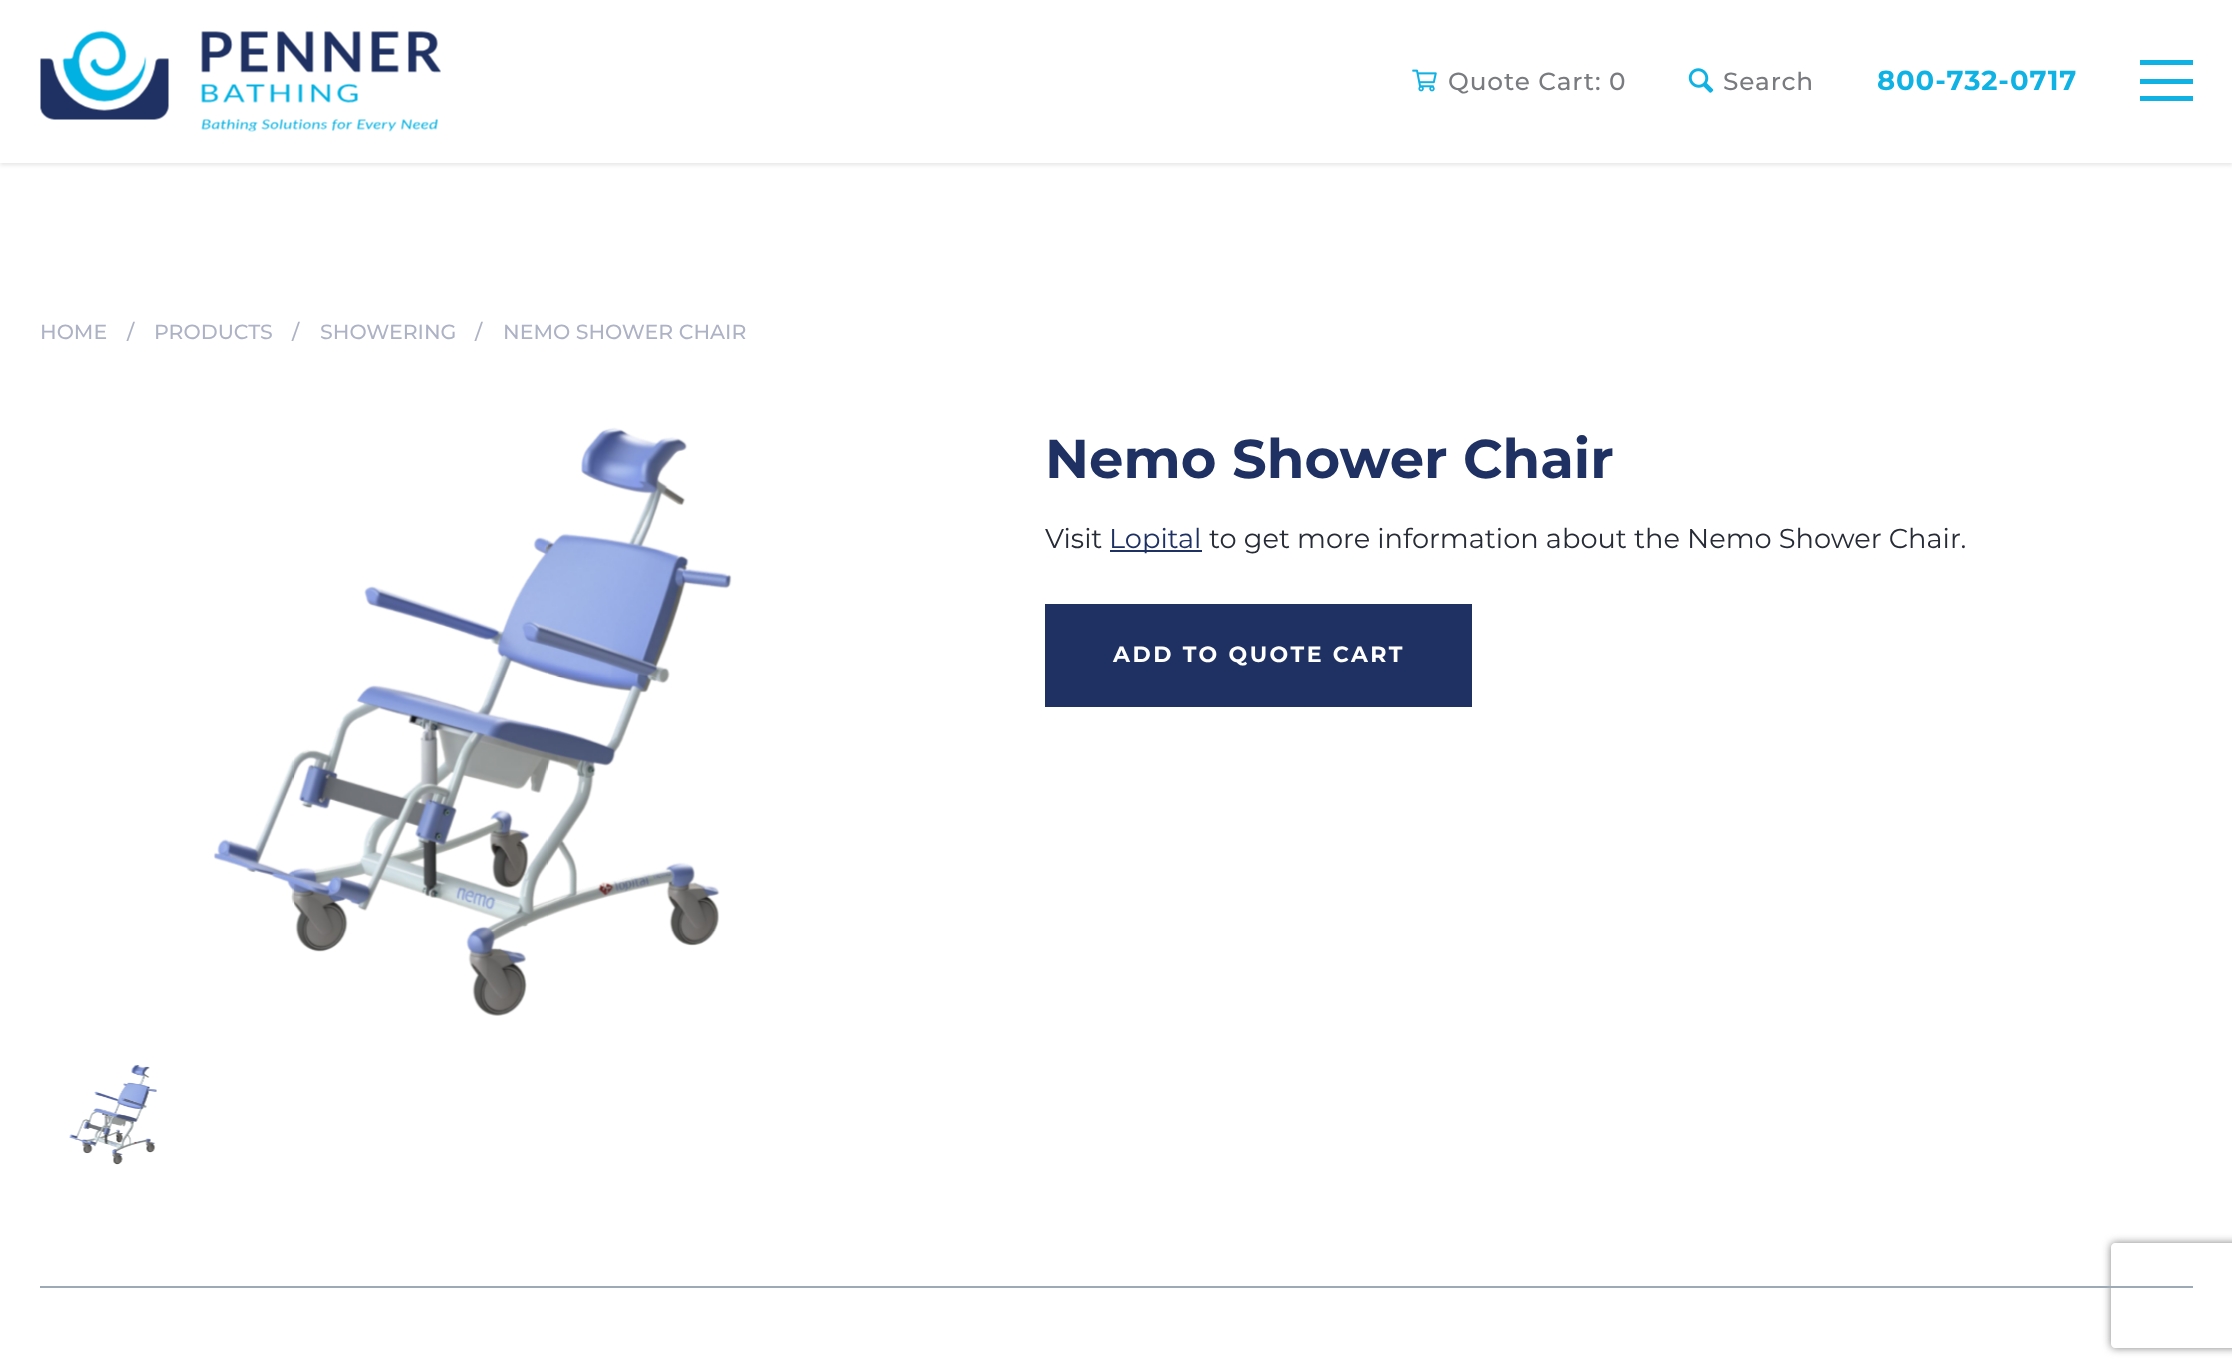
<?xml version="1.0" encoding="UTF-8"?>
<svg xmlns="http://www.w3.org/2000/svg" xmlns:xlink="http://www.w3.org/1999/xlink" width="2232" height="1372">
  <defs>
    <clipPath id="clip1"><path d="M 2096 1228 h 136 v 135 h -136 z m 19 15 h 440 c 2 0 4 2 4 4 v 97 c 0 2 -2 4 -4 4 h -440 c -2 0 -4 -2 -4 -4 v -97 c 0 -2 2 -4 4 -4 z" clip-rule="evenodd" /></clipPath>
  </defs>
  <rect width="100%" height="100%" fill="#ffffff" />
  <rect y="2" width="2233" height="163" fill="#000000" fill-opacity="0.1" filter="blur(2px)" />
  <rect width="2232" height="163" fill="#ffffff" />
  <image x="40" y="31" width="401" height="101" xlink:href="image1.png" />
  <image x="1412" y="69" width="25" height="23" xlink:href="image2.png" />
  <image x="1688" y="68" width="26" height="25" xlink:href="image3.png" />
  <rect x="2140" y="60" width="53" height="5" fill="#10b2e4" />
  <rect x="2140" y="79" width="53" height="5" fill="#10b2e4" />
  <rect x="2140" y="96" width="53" height="5" fill="#10b2e4" />
  <image x="213" y="427" width="519" height="589" xlink:href="image4.png" />
  <image x="69" y="1064" width="88" height="101" xlink:href="image5.png" />
  <rect x="1110" y="550" width="92" height="2" fill="#1e3162" />
  <rect x="1045" y="604" width="427" height="103" fill="#1e3162" />
  <g clip-path="url(#clip1)">
    <rect x="2111" y="1243" width="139" height="105" rx="4" fill="#808080" filter="blur(4.5px)" />
  </g>
  <rect x="40" y="1286" width="2153" height="2" fill="#9da9b5" />
  <text x="1448" y="90" style="font-family: Montserrat; font-size: 24.75px; font-weight: 500; letter-spacing: 0.9px; fill: #797b7e">Quote Cart: 0</text>
  <text x="1723" y="90" style="font-family: Montserrat; font-size: 24.75px; font-weight: 500; letter-spacing: 0.9px; fill: #797b7e">Search</text>
  <text x="1877" y="90" style="font-family: Montserrat; font-size: 27.5px; font-weight: bold; letter-spacing: 0.9px; fill: #10b2e4">800-732-0717</text>
  <text x="40" y="339" style="font-family: Montserrat; font-size: 20.5px; font-weight: 500; fill: #adb3c5">HOME</text>
  <text x="127" y="339" style="font-family: Montserrat; font-size: 20.5px; font-weight: 500; fill: #adb3c5">/</text>
  <text x="154" y="339" style="font-family: Montserrat; font-size: 20.5px; font-weight: 500; fill: #adb3c5">PRODUCTS</text>
  <text x="292" y="339" style="font-family: Montserrat; font-size: 20.5px; font-weight: 500; fill: #adb3c5">/</text>
  <text x="320" y="339" style="font-family: Montserrat; font-size: 20.5px; font-weight: 500; fill: #adb3c5">SHOWERING</text>
  <text x="475" y="339" style="font-family: Montserrat; font-size: 20.5px; font-weight: 500; fill: #adb3c5">/</text>
  <text x="503" y="339" style="font-family: Montserrat; font-size: 20.5px; font-weight: 500; fill: #adb3c5">NEMO SHOWER CHAIR</text>
  <text x="1045" y="478" style="font-family: Montserrat; font-size: 54.5px; font-weight: bold; fill: #1e3162">Nemo Shower Chair</text>
  <text x="1045" y="548" style="font-family: Montserrat; font-size: 27.25px; fill: #262b36">Visit</text>
  <text x="1109" y="548" style="font-family: Montserrat; font-size: 27.25px; fill: #1e3162">Lopital</text>
  <text x="1209" y="548" style="font-family: Montserrat; font-size: 27.25px; fill: #262b36">to get more information about the Nemo Shower Chair.</text>
  <text x="1113" y="662" style="font-family: Montserrat; font-size: 22.1px; font-weight: bold; letter-spacing: 2.5px; fill: #ffffff">ADD TO QUOTE CART</text>
</svg>
